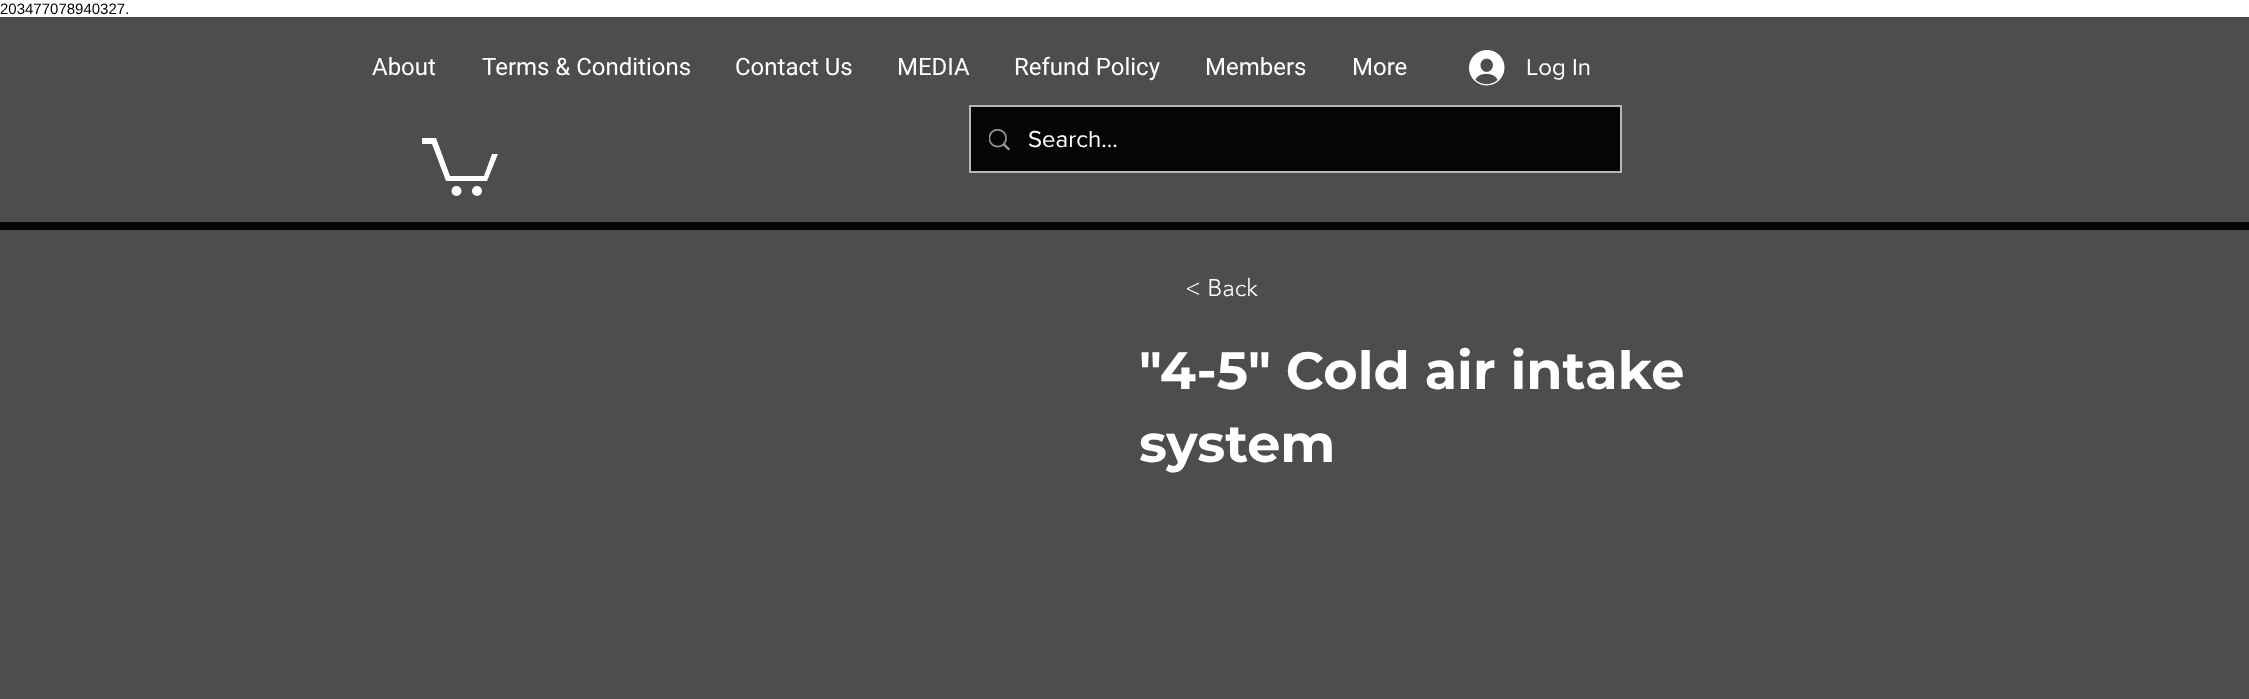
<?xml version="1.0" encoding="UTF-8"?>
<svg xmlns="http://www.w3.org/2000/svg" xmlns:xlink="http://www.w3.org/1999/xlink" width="2249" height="699">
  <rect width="100%" height="100%" fill="#ffffff" />
  <rect y="17" width="2249" height="205" fill="#4d4d4d" />
  <image x="1469" y="50" width="36" height="36" xlink:href="image1.png" />
  <path d="M 498 154 l -11 27 h -41 l -14 -37 h -10 v -6 h 14 l 14 38 h 34 l 8 -22" fill="#ffffff" />
  <circle cx="477" cy="191" r="5" fill="#ffffff" />
  <circle cx="456.5" cy="191" r="5" fill="#ffffff" />
  <rect x="970" y="106" width="651" height="66" fill="none" stroke="#b8b8b8" stroke-width="2" />
  <rect x="971" y="107" width="649" height="64" fill="#060506" />
  <image x="989" y="129" width="21" height="21" xlink:href="image2.png" />
  <rect y="230" width="2249" height="469" fill="#4d4d4d" />
  <rect y="222" width="2249" height="8" fill="#060506" />
  <text x="0" y="14" style="font-family: Liberation Sans; font-size: 15px; fill: #000000">203477078940327.</text>
  <text x="372" y="75" style="font-family: Roboto; font-size: 24px; fill: #ffffff">About</text>
  <text x="482" y="75" style="font-family: Roboto; font-size: 24px; fill: #ffffff">Terms &amp; Conditions</text>
  <text x="735" y="75" style="font-family: Roboto; font-size: 24px; fill: #ffffff">Contact Us</text>
  <text x="897" y="75" style="font-family: Roboto; font-size: 24px; fill: #ffffff">MEDIA</text>
  <text x="1014" y="75" style="font-family: Roboto; font-size: 24px; fill: #ffffff">Refund Policy</text>
  <text x="1205" y="75" style="font-family: Roboto; font-size: 24px; fill: #ffffff">Members</text>
  <text x="1352" y="75" style="font-family: Roboto; font-size: 24px; fill: #ffffff">More</text>
  <text x="1526" y="75" style="font-family: 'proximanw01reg'; font-size: 24px; fill: #ffffff">Log In</text>
  <text x="1028" y="147" style="font-family: 'proximanw01reg'; font-size: 24px; fill: #ffffff">Search...</text>
  <text x="1185" y="296" style="font-family: 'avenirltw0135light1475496'; font-size: 24px; font-weight: 300; fill: #ffffff">&lt; Back</text>
  <text x="1139" y="389" style="font-family: Montserrat; font-size: 52.5px; font-weight: bold; fill: #ffffff">"4-5" Cold air intake</text>
  <text x="1139" y="462" style="font-family: Montserrat; font-size: 52.5px; font-weight: bold; fill: #ffffff">system</text>
</svg>
